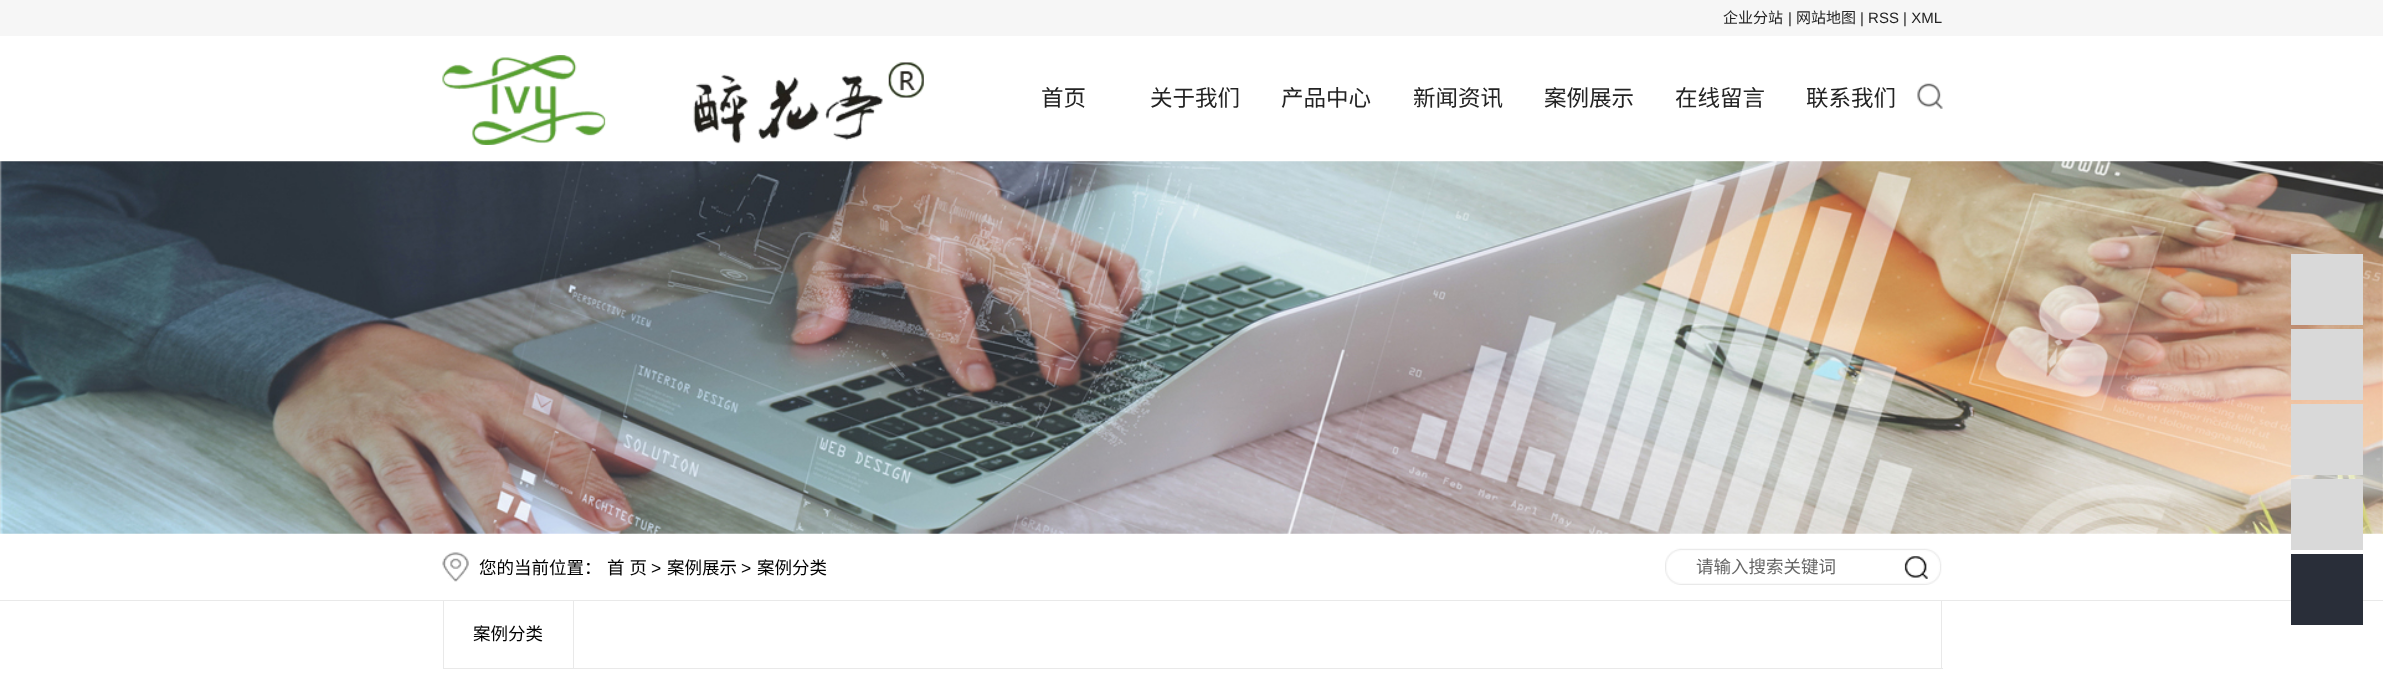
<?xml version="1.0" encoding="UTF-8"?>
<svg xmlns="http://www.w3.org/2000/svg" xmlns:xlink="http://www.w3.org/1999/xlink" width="2383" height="698">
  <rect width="100%" height="100%" fill="#ffffff" />
  <rect width="2383" height="36" fill="#f6f6f6" />
  <image x="442" y="55" width="482" height="90" xlink:href="image1.png" />
  <image x="1917" y="83" width="26" height="26" xlink:href="image2.png" />
  <image x="0" y="161" width="2383" height="373" xlink:href="image3.png" />
  <rect y="600" width="2383" height="1" fill="#e9e9e9" />
  <image x="442" y="552" width="27" height="30" xlink:href="image4.png" />
  <image x="1665" y="548" width="277" height="37" xlink:href="image5.png" />
  <rect x="1941" y="601" width="1" height="68" fill="#e9e9e9" />
  <rect x="443" y="668" width="1500" height="1" fill="#e9e9e9" />
  <rect x="573" y="601" width="1" height="68" fill="#e9e9e9" />
  <rect x="443" y="601" width="1" height="68" fill="#e9e9e9" />
  <rect x="2291" y="254" width="72" height="71" fill="#d9d9d9" />
  <rect x="2291" y="329" width="72" height="71" fill="#d9d9d9" />
  <rect x="2291" y="404" width="72" height="71" fill="#d9d9d9" />
  <rect x="2291" y="479" width="72" height="71" fill="#d9d9d9" />
  <rect x="2291" y="554" width="72" height="71" fill="#292e39" />
  <text x="1723" y="23" style="font-family: Noto Sans CJK SC; font-size: 15px; fill: #232323">企业分站</text>
  <text x="1788" y="23" style="font-family: Liberation Sans; font-size: 15px; fill: #232323">|</text>
  <text x="1796" y="23" style="font-family: Noto Sans CJK SC; font-size: 15px; fill: #232323">网站地图</text>
  <text x="1860" y="23" style="font-family: Liberation Sans; font-size: 15px; fill: #232323">| RSS | XML</text>
  <text x="1041" y="106" style="font-family: Noto Sans CJK SC; font-size: 22.5px; fill: #232323">首页</text>
  <text x="1150" y="106" style="font-family: Noto Sans CJK SC; font-size: 22.5px; fill: #232323">关于我们</text>
  <text x="1281" y="106" style="font-family: Noto Sans CJK SC; font-size: 22.5px; fill: #232323">产品中心</text>
  <text x="1413" y="106" style="font-family: Noto Sans CJK SC; font-size: 22.5px; fill: #232323">新闻资讯</text>
  <text x="1544" y="106" style="font-family: Noto Sans CJK SC; font-size: 22.5px; fill: #232323">案例展示</text>
  <text x="1675" y="106" style="font-family: Noto Sans CJK SC; font-size: 22.5px; fill: #232323">在线留言</text>
  <text x="1806" y="106" style="font-family: Noto Sans CJK SC; font-size: 22.5px; fill: #232323">联系我们</text>
  <text x="479" y="574" style="font-family: Noto Sans CJK SC; font-size: 17.5px; fill: #000000">您的当前位置：</text>
  <text x="607" y="574" word-spacing="1" style="font-family: Noto Sans CJK SC; font-size: 17.5px; fill: #000000">首 页</text>
  <text x="651" y="574" style="font-family: Liberation Sans; font-size: 17.5px; fill: #000000">&gt;</text>
  <text x="667" y="574" style="font-family: Noto Sans CJK SC; font-size: 17.5px; fill: #000000">案例展示</text>
  <text x="741" y="574" style="font-family: Liberation Sans; font-size: 17.5px; fill: #000000">&gt;</text>
  <text x="757" y="574" style="font-family: Noto Sans CJK SC; font-size: 17.5px; fill: #000000">案例分类</text>
  <text x="1696" y="573" style="font-family: Noto Sans CJK SC; font-size: 17.5px; fill: #666666">请输入搜索关键词</text>
  <text x="473" y="640" style="font-family: Noto Sans CJK SC; font-size: 17.5px; fill: #000000">案例分类</text>
</svg>
